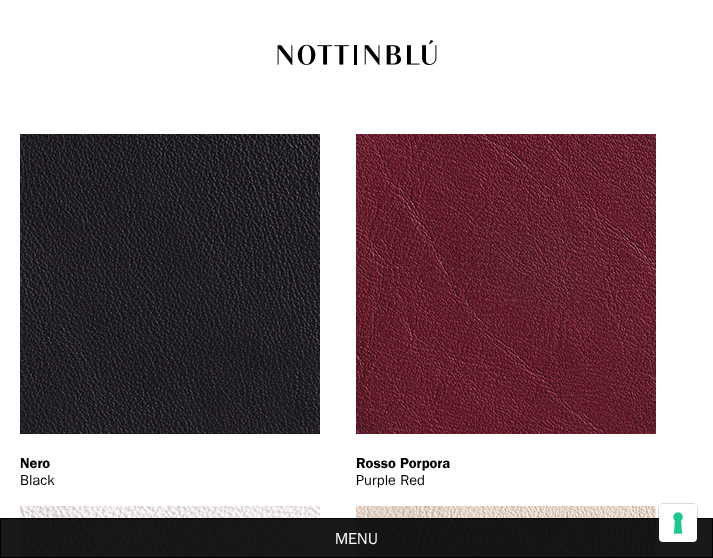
<?xml version="1.0" encoding="UTF-8"?>
<svg xmlns="http://www.w3.org/2000/svg" xmlns:xlink="http://www.w3.org/1999/xlink" width="713" height="558">
  <rect width="100%" height="100%" fill="#ffffff" />
  <image x="20" y="134" width="300" height="300" xlink:href="image1.png" />
  <image x="356" y="134" width="300" height="300" xlink:href="image2.png" />
  <image x="20" y="506" width="300" height="52" xlink:href="image3.png" />
  <image x="356" y="506" width="300" height="52" xlink:href="image4.png" />
  <image x="277" y="40" width="160" height="25" xlink:href="image5.png" />
  <rect y="518" width="713" height="40" fill="#000000" fill-opacity="0.9" />
  <rect x="0.5" y="518.5" width="712" height="39" fill="none" stroke="#000000" stroke-opacity="0.9" />
  <rect x="658.5" y="503.5" width="39" height="39" rx="4.5" fill="none" stroke="#000000" stroke-opacity="0.15" />
  <rect x="659" y="504" width="38" height="38" rx="4" fill="#ffffff" />
  <image x="673" y="512" width="10" height="22" xlink:href="image6.png" />
  <text x="20" y="468" style="font-family: Franklin Gothic; font-size: 14.5px; fill: #000000">Nero</text>
  <text x="20" y="485" style="font-family: 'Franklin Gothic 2'; font-size: 14.5px; fill: #000000">Black</text>
  <text x="356" y="468" style="font-family: Franklin Gothic; font-size: 14.5px; fill: #000000">Rosso Porpora</text>
  <text x="356" y="485" style="font-family: 'Franklin Gothic 2'; font-size: 14.5px; fill: #000000">Purple Red</text>
  <text x="335" y="544" style="font-family: 'Franklin Gothic 2'; font-size: 16px; fill: #ffffff">MENU</text>
</svg>
